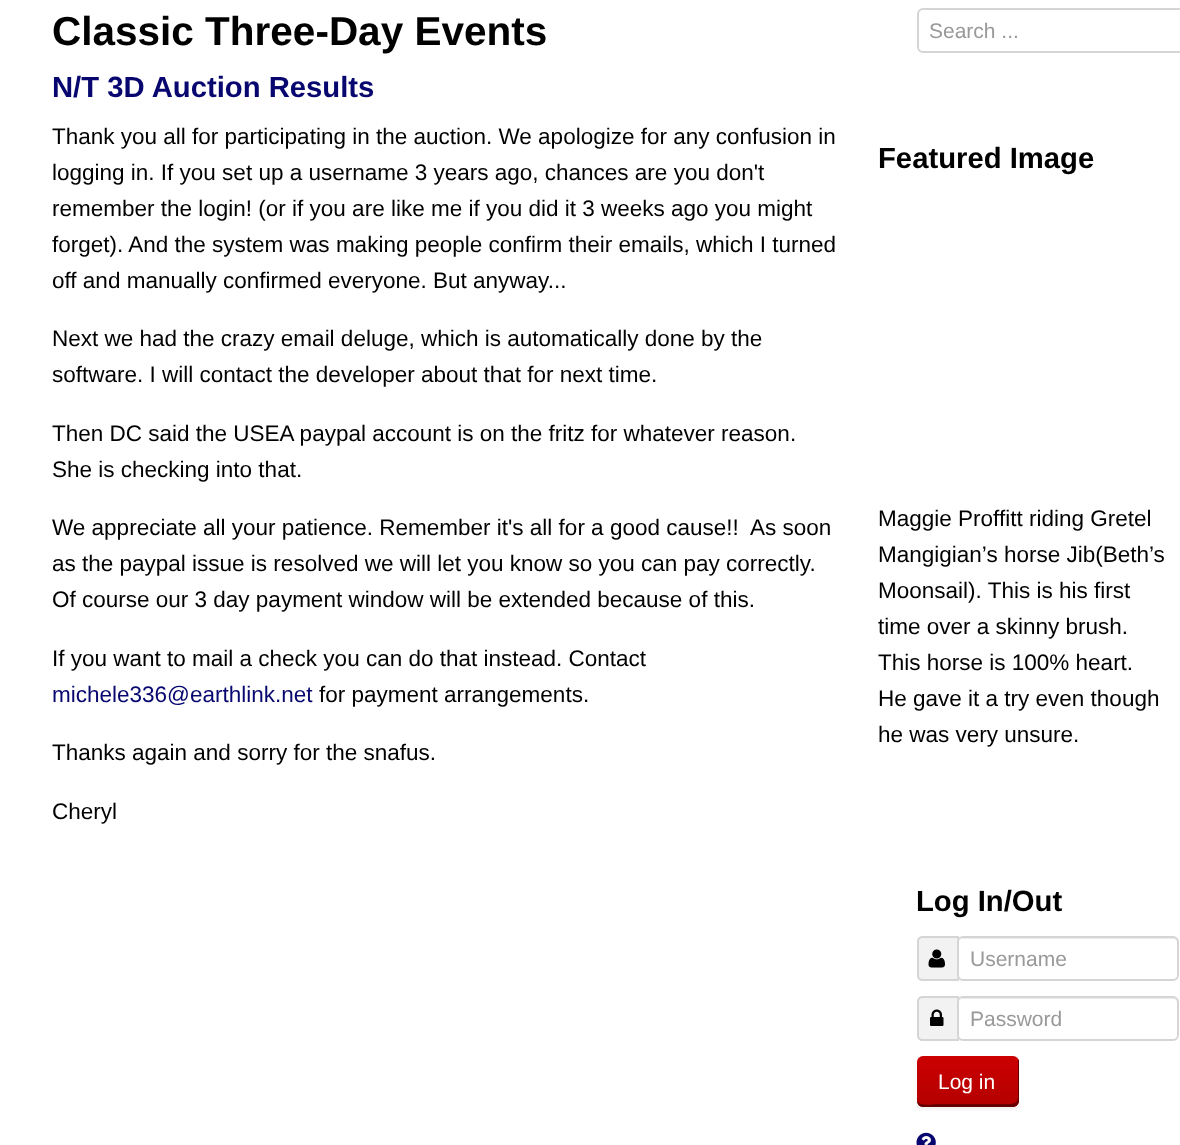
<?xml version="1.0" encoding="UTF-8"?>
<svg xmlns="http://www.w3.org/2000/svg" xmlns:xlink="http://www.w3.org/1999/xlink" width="1180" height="1145">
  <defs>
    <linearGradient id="g1" gradientUnits="userSpaceOnUse" x1="968" y1="1056" x2="968" y2="1107"><stop offset="0" stop-color="#cc0000" /><stop offset="1" stop-color="#b30000" /></linearGradient>
  </defs>
  <rect width="100%" height="100%" fill="#ffffff" />
  <rect x="918" y="9" width="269" height="43" rx="5" fill="none" stroke="#d5d5d5" stroke-width="2" />
  <path d="M 922 937 h 36 v 43 h -36 c -2 0 -4 -2 -4 -4 v -35 c 0 -2 2 -4 4 -4 z" fill="#f2f2f2" stroke="#d5d5d5" stroke-width="2" />
  <image x="928" y="949" width="17" height="19" xlink:href="image1.png" />
  <rect x="957" y="936" width="222" height="45" rx="6" fill="#ffffff" />
  <path d="M 963 939 h 210 c 2 0 5 2 5 5 v -1 c 0 -3 -2 -5 -5 -5 h -209 c -2 0 -3 1 -4 2 z" fill="#ececec" />
  <rect x="958" y="937" width="220" height="43" rx="5" fill="none" stroke="#d5d5d5" stroke-width="2" />
  <path d="M 922 997 h 36 v 43 h -36 c -2 0 -4 -2 -4 -4 v -35 c 0 -2 2 -4 4 -4 z" fill="#f2f2f2" stroke="#d5d5d5" stroke-width="2" />
  <image x="930" y="1009" width="14" height="17" xlink:href="image2.png" />
  <rect x="957" y="996" width="222" height="45" rx="6" fill="#ffffff" />
  <path d="M 963 999 h 210 c 2 0 5 2 5 5 v -1 c 0 -3 -2 -5 -5 -5 h -209 c -2 0 -3 1 -4 2 z" fill="#ececec" />
  <rect x="958" y="997" width="220" height="43" rx="5" fill="none" stroke="#d5d5d5" stroke-width="2" />
  <rect x="917" y="1059" width="102" height="51" rx="6" fill="#000000" fill-opacity="0.05" filter="blur(1px)" />
  <rect x="917" y="1056" width="102" height="51" rx="6" fill="url(#g1)" />
  <path d="M 917 1101 c 0 3 3 6 6 6 h 90 c 3 0 6 -3 6 -6 v -39 c 0 -1 0 -2 -1 -3 v 26 c 0 21 2 19 -21 19 h -60 c -4 0 -16 3 -20 -3 z" fill="#660000" />
  <image x="916" y="1132" width="20" height="13" xlink:href="image3.png" />
  <text x="52" y="45" style="font-family: Liberation Sans; font-size: 40.5px; font-weight: bold; fill: #000000">Classic Three-Day Events</text>
  <text x="52" y="97" style="font-family: Liberation Sans; font-size: 29.25px; font-weight: bold; fill: #07076f">N/T 3D Auction Results</text>
  <text x="52" y="144" style="font-family: Liberation Sans; font-size: 22.5px; fill: #000000">Thank you all for participating in the auction. We apologize for any confusion in</text>
  <text x="52" y="180" style="font-family: Liberation Sans; font-size: 22.5px; fill: #000000">logging in. If you set up a username 3 years ago, chances are you don't</text>
  <text x="52" y="216" style="font-family: Liberation Sans; font-size: 22.5px; fill: #000000">remember the login! (or if you are like me if you did it 3 weeks ago you might</text>
  <text x="52" y="252" style="font-family: Liberation Sans; font-size: 22.5px; fill: #000000">forget). And the system was making people confirm their emails, which I turned</text>
  <text x="52" y="288" style="font-family: Liberation Sans; font-size: 22.5px; fill: #000000">off and manually confirmed everyone. But anyway...</text>
  <text x="52" y="346" style="font-family: Liberation Sans; font-size: 22.5px; fill: #000000">Next we had the crazy email deluge, which is automatically done by the</text>
  <text x="52" y="382" style="font-family: Liberation Sans; font-size: 22.5px; fill: #000000">software. I will contact the developer about that for next time.</text>
  <text x="52" y="441" style="font-family: Liberation Sans; font-size: 22.5px; fill: #000000">Then DC said the USEA paypal account is on the fritz for whatever reason.</text>
  <text x="52" y="477" style="font-family: Liberation Sans; font-size: 22.5px; fill: #000000">She is checking into that.</text>
  <text x="52" y="535" style="font-family: Liberation Sans; font-size: 22.5px; fill: #000000" xml:space="preserve">We appreciate all your patience. Remember it's all for a good cause!!  As soon</text>
  <text x="52" y="571" style="font-family: Liberation Sans; font-size: 22.5px; fill: #000000">as the paypal issue is resolved we will let you know so you can pay correctly.</text>
  <text x="52" y="607" style="font-family: Liberation Sans; font-size: 22.5px; fill: #000000">Of course our 3 day payment window will be extended because of this.</text>
  <text x="52" y="666" style="font-family: Liberation Sans; font-size: 22.5px; fill: #000000">If you want to mail a check you can do that instead. Contact</text>
  <text x="52" y="702" style="font-family: Liberation Sans; font-size: 22.5px; fill: #07076f">michele336@earthlink.net</text>
  <text x="319" y="702" style="font-family: Liberation Sans; font-size: 22.5px; fill: #000000">for payment arrangements.</text>
  <text x="52" y="760" style="font-family: Liberation Sans; font-size: 22.5px; fill: #000000">Thanks again and sorry for the snafus.</text>
  <text x="52" y="819" style="font-family: Liberation Sans; font-size: 22.5px; fill: #000000">Cheryl</text>
  <text x="929" y="38" style="font-family: Liberation Sans; font-size: 21px; fill: #999999">Search ...</text>
  <text x="878" y="168" style="font-family: Liberation Sans; font-size: 29.25px; font-weight: bold; fill: #000000">Featured Image</text>
  <text x="878" y="526" style="font-family: Liberation Sans; font-size: 22.5px; fill: #000000">Maggie Proffitt riding Gretel</text>
  <text x="878" y="562" style="font-family: Liberation Sans; font-size: 22.5px; fill: #000000">Mangigian’s horse Jib(Beth’s</text>
  <text x="878" y="598" style="font-family: Liberation Sans; font-size: 22.5px; fill: #000000">Moonsail). This is his first</text>
  <text x="878" y="634" style="font-family: Liberation Sans; font-size: 22.5px; fill: #000000">time over a skinny brush.</text>
  <text x="878" y="670" style="font-family: Liberation Sans; font-size: 22.5px; fill: #000000">This horse is 100% heart.</text>
  <text x="878" y="706" style="font-family: Liberation Sans; font-size: 22.5px; fill: #000000">He gave it a try even though</text>
  <text x="878" y="742" style="font-family: Liberation Sans; font-size: 22.5px; fill: #000000">he was very unsure.</text>
  <text x="916" y="911" style="font-family: Liberation Sans; font-size: 29.25px; font-weight: bold; fill: #000000">Log In/Out</text>
  <text x="970" y="966" style="font-family: Liberation Sans; font-size: 21px; fill: #999999">Username</text>
  <text x="970" y="1026" style="font-family: Liberation Sans; font-size: 21px; fill: #999999">Password</text>
  <text x="938" y="1089" style="font-family: Liberation Sans; font-size: 21px; fill: #ffffff">Log in</text>
</svg>
